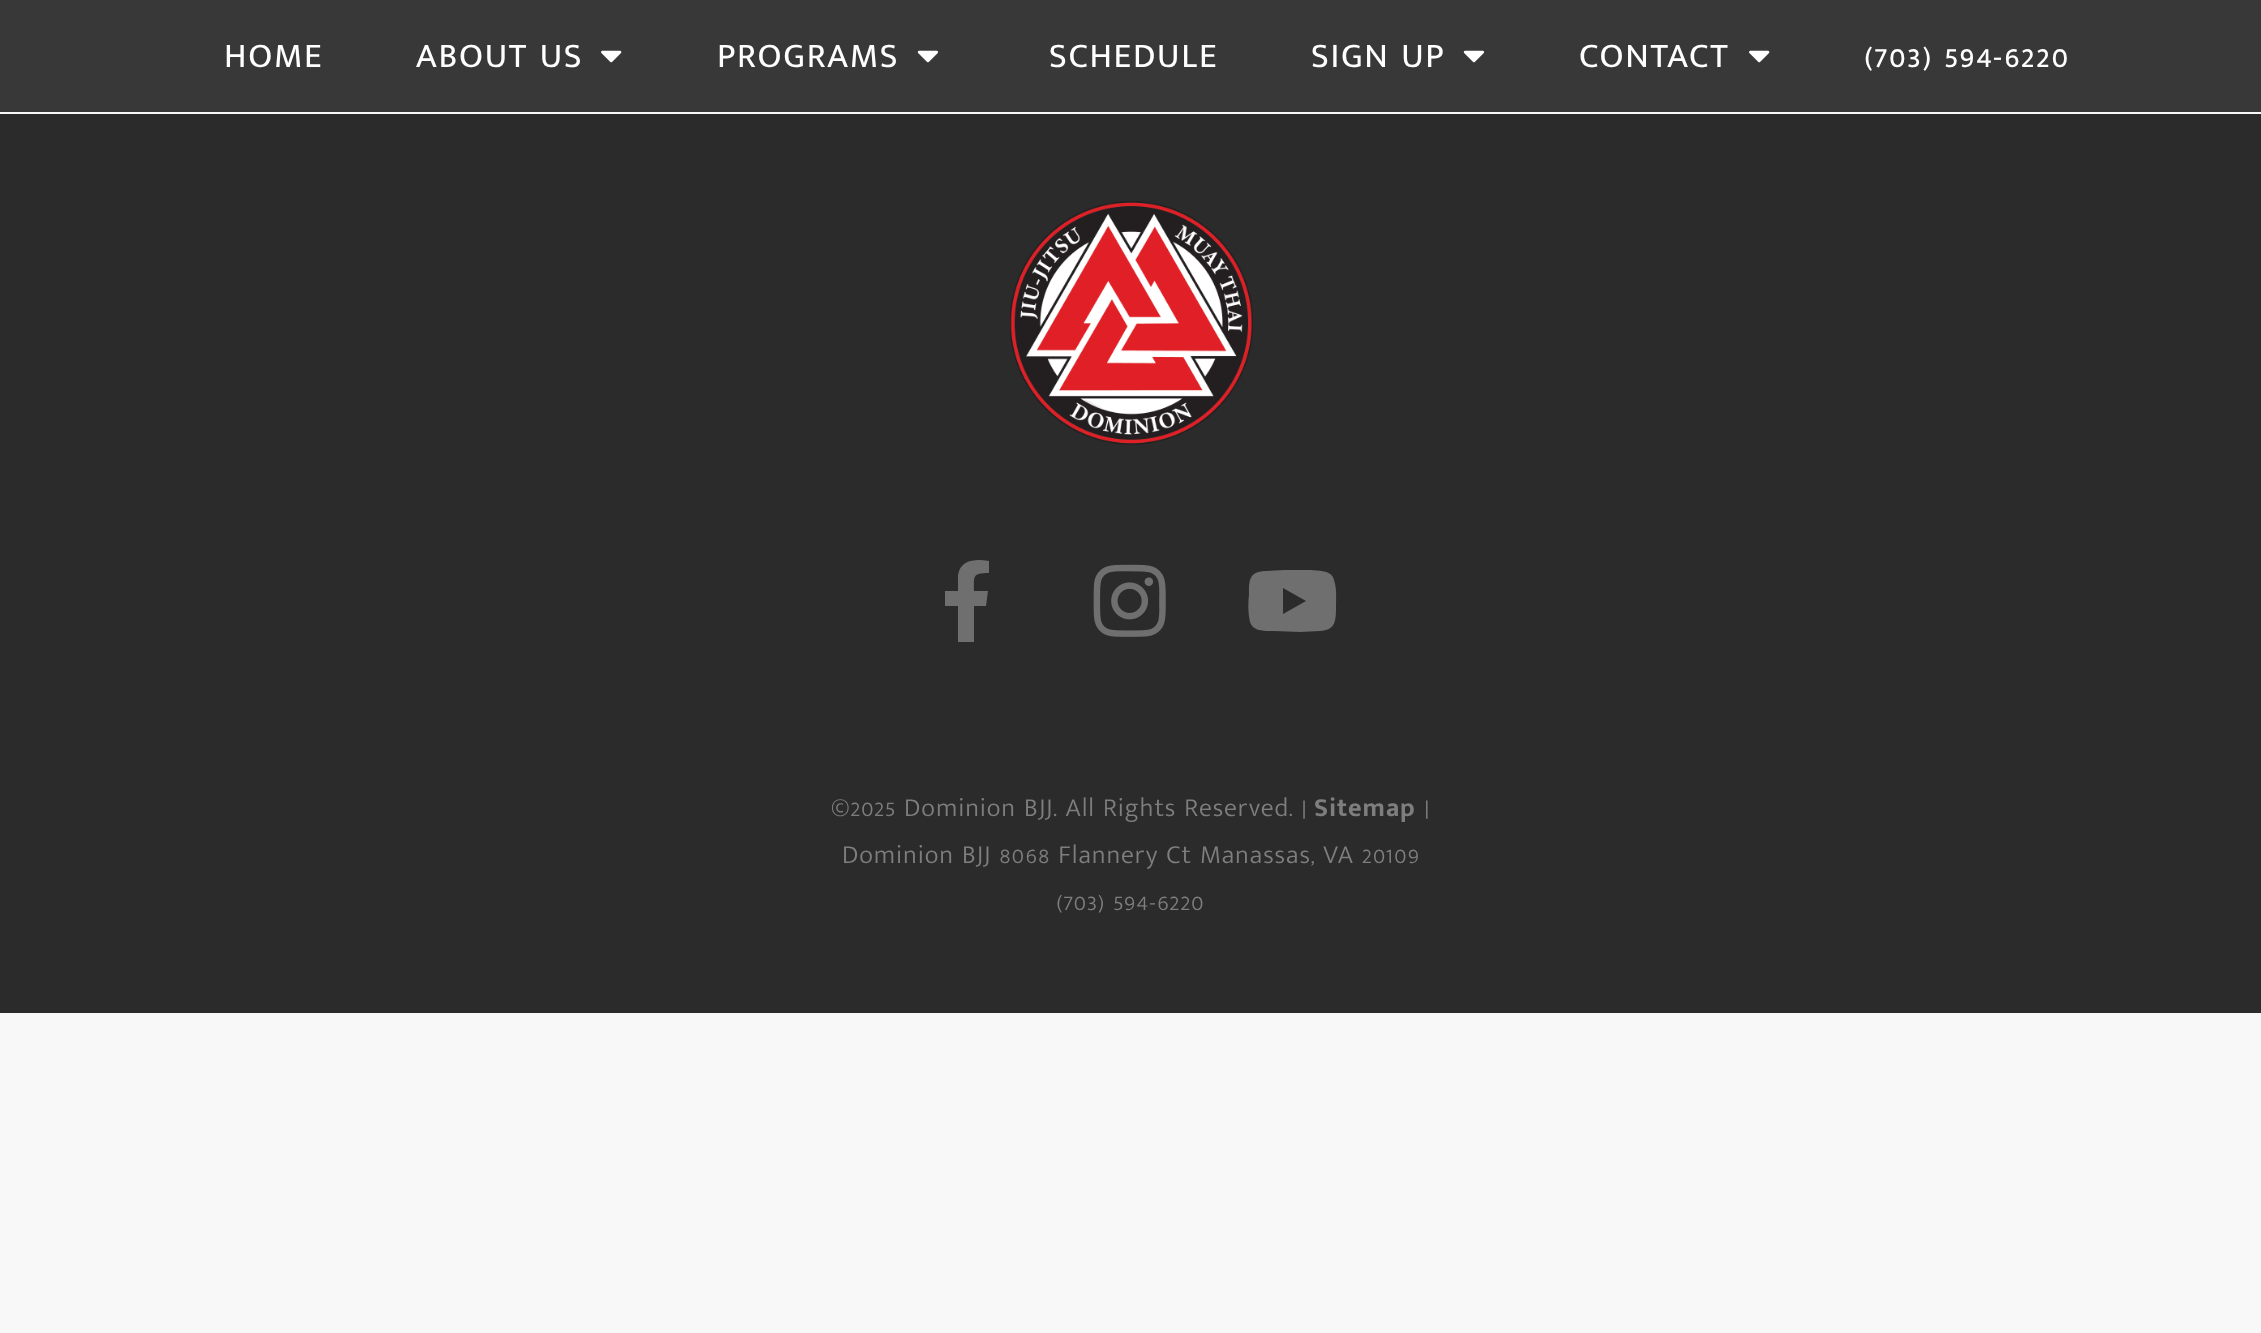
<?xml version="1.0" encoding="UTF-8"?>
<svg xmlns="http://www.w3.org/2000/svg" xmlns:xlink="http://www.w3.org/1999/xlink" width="2261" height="1333">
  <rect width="100%" height="100%" fill="#f8f8f8" />
  <rect width="2261" height="112" fill="#383838" />
  <image x="601" y="50" width="21" height="13" xlink:href="image1.png" />
  <image x="917" y="50" width="22" height="13" xlink:href="image2.png" />
  <image x="1463" y="50" width="22" height="13" xlink:href="image2.png" />
  <image x="1749" y="50" width="21" height="13" xlink:href="image1.png" />
  <rect y="114" width="2261" height="899" fill="#2b2b2b" />
  <image x="1010" y="201" width="243" height="244" xlink:href="image3.png" />
  <path d="M 986 606 h -12 v 36 h -16 v -36 h -13 v -15 h 13 v -16 c 3 -16 18 -16 31 -14 v 12 c -17 0 -15 3 -15 18 h 14 z" fill="#6f6f6f" />
  <image x="1093" y="564" width="73" height="73" xlink:href="image4.png" />
  <path d="M 1334 580 c 3 9 2 18 2 27 c 0 15 -1 23 -16 24 l -20 1 l -26 -1 c -8 0 -21 1 -24 -9 c -2 -9 -2 -18 -1 -28 c 0 -14 0 -22 16 -23 l 20 -1 h 26 c 8 1 21 0 23 10 z m -51 34 l 23 -13 l -23 -13 z" fill="#6f6f6f" />
  <text x="224" y="67" style="font-family: Mukta Malar; font-size: 35px; letter-spacing: 1.75px; fill: #ffffff">HOME</text>
  <text x="416" y="67" style="font-family: Mukta Malar; font-size: 35px; letter-spacing: 1.75px; fill: #ffffff">ABOUT US</text>
  <text x="717" y="67" style="font-family: Mukta Malar; font-size: 35px; letter-spacing: 1.75px; fill: #ffffff">PROGRAMS</text>
  <text x="1049" y="67" style="font-family: Mukta Malar; font-size: 35px; letter-spacing: 1.75px; fill: #ffffff">SCHEDULE</text>
  <text x="1311" y="67" style="font-family: Mukta Malar; font-size: 35px; letter-spacing: 1.75px; fill: #ffffff">SIGN UP</text>
  <text x="1579" y="67" style="font-family: Mukta Malar; font-size: 35px; letter-spacing: 1.75px; fill: #ffffff">CONTACT</text>
  <text x="1864" y="67" style="font-family: Mukta Malar; font-size: 35px; letter-spacing: 1.75px; fill: #ffffff">(703) 594-6220</text>
  <text x="831" y="816" style="font-family: Mukta Malar; font-size: 26.25px; font-weight: 300; letter-spacing: 0.9px; fill: #7e7e7e">©2025 Dominion BJJ. All Rights Reserved. |</text>
  <text x="1314" y="816" style="font-family: Mukta Malar; font-size: 26.25px; font-weight: bold; letter-spacing: 0.9px; fill: #7e7e7e">Sitemap</text>
  <text x="1424" y="816" style="font-family: Mukta Malar; font-size: 26.25px; font-weight: 300; letter-spacing: 0.9px; fill: #7e7e7e">|</text>
  <text x="842" y="863" style="font-family: Mukta Malar; font-size: 26.25px; font-weight: 300; letter-spacing: 0.9px; fill: #7e7e7e">Dominion BJJ 8068 Flannery Ct Manassas, VA 20109</text>
  <text x="1056" y="910" style="font-family: Mukta Malar; font-size: 26.25px; font-weight: 300; letter-spacing: 0.9px; fill: #7e7e7e">(703) 594-6220</text>
</svg>
